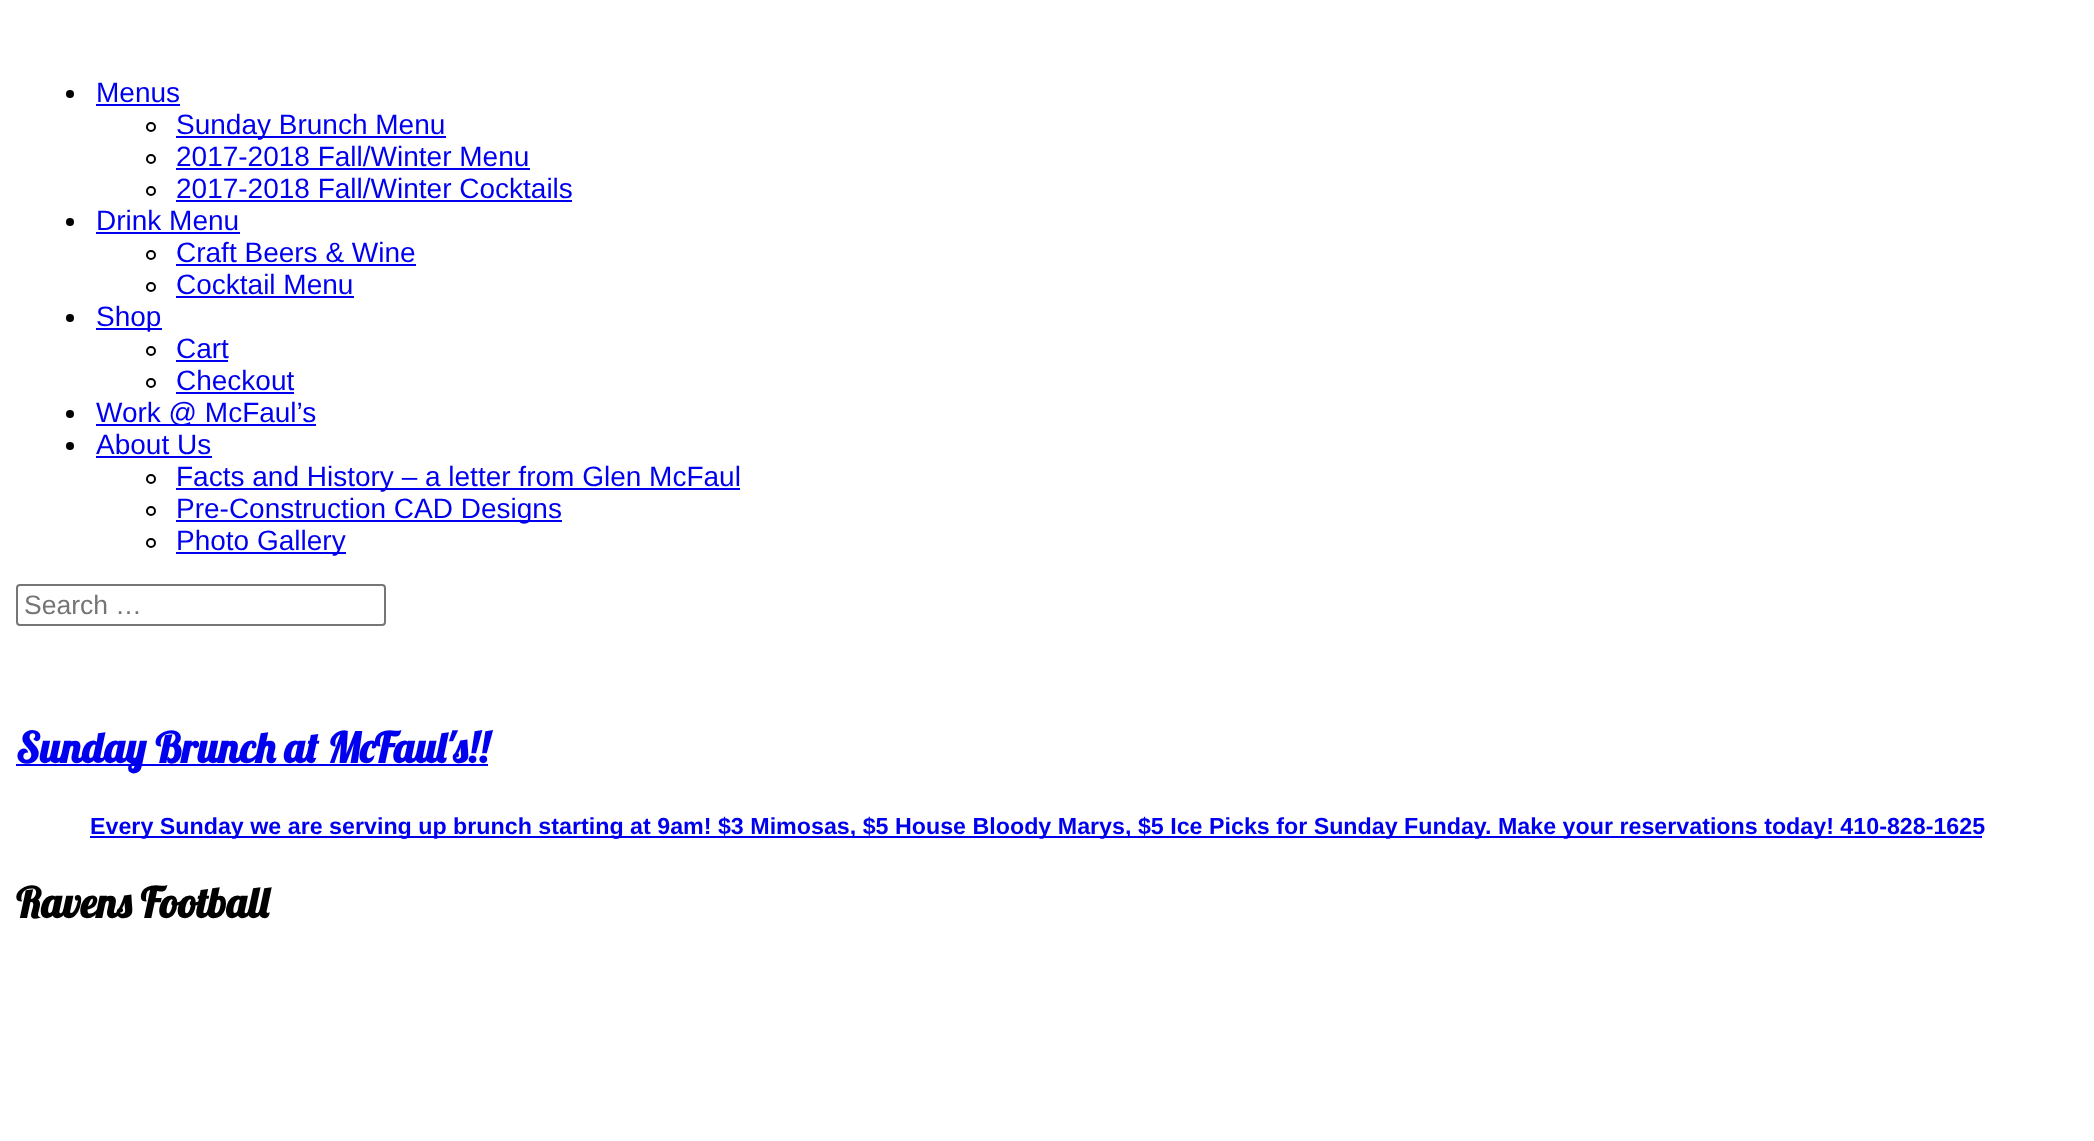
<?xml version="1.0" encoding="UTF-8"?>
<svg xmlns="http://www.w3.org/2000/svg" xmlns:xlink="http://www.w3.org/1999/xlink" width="2094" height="1141">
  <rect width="100%" height="100%" fill="#ffffff" />
  <circle cx="70" cy="94" r="4" fill="#000000" />
  <rect x="96" y="104" width="84" height="2" fill="#0000ee" />
  <circle cx="151" cy="127" r="4" fill="none" stroke="#000000" stroke-width="2" />
  <rect x="176" y="136" width="270" height="2" fill="#0000ee" />
  <circle cx="151" cy="159" r="4" fill="none" stroke="#000000" stroke-width="2" />
  <rect x="176" y="168" width="354" height="2" fill="#0000ee" />
  <circle cx="151" cy="191" r="4" fill="none" stroke="#000000" stroke-width="2" />
  <rect x="176" y="200" width="396" height="2" fill="#0000ee" />
  <circle cx="70" cy="222" r="4" fill="#000000" />
  <rect x="96" y="232" width="144" height="2" fill="#0000ee" />
  <circle cx="151" cy="255" r="4" fill="none" stroke="#000000" stroke-width="2" />
  <rect x="176" y="264" width="240" height="2" fill="#0000ee" />
  <circle cx="151" cy="287" r="4" fill="none" stroke="#000000" stroke-width="2" />
  <rect x="176" y="296" width="178" height="2" fill="#0000ee" />
  <circle cx="70" cy="318" r="4" fill="#000000" />
  <rect x="96" y="328" width="66" height="2" fill="#0000ee" />
  <circle cx="151" cy="351" r="4" fill="none" stroke="#000000" stroke-width="2" />
  <rect x="176" y="360" width="52" height="2" fill="#0000ee" />
  <circle cx="151" cy="383" r="4" fill="none" stroke="#000000" stroke-width="2" />
  <rect x="176" y="392" width="118" height="2" fill="#0000ee" />
  <circle cx="70" cy="414" r="4" fill="#000000" />
  <rect x="96" y="424" width="220" height="2" fill="#0000ee" />
  <circle cx="70" cy="446" r="4" fill="#000000" />
  <rect x="96" y="456" width="116" height="2" fill="#0000ee" />
  <circle cx="151" cy="479" r="4" fill="none" stroke="#000000" stroke-width="2" />
  <rect x="176" y="488" width="564" height="2" fill="#0000ee" />
  <circle cx="151" cy="511" r="4" fill="none" stroke="#000000" stroke-width="2" />
  <rect x="176" y="520" width="386" height="2" fill="#0000ee" />
  <circle cx="151" cy="543" r="4" fill="none" stroke="#000000" stroke-width="2" />
  <rect x="176" y="552" width="170" height="2" fill="#0000ee" />
  <rect x="17" y="585" width="368" height="40" rx="3" fill="none" stroke="#767676" stroke-width="2" />
  <rect x="16" y="764" width="472" height="2" fill="#0000ee" />
  <rect x="90" y="836" width="1892" height="2" fill="#0000ee" />
  <text x="96" y="102" style="font-family: Liberation Sans; font-size: 28px; fill: #0000ee">Menus</text>
  <text x="176" y="134" style="font-family: Liberation Sans; font-size: 28px; fill: #0000ee">Sunday Brunch Menu</text>
  <text x="176" y="166" style="font-family: Liberation Sans; font-size: 28px; fill: #0000ee">2017-2018 Fall/Winter Menu</text>
  <text x="176" y="198" style="font-family: Liberation Sans; font-size: 28px; fill: #0000ee">2017-2018 Fall/Winter Cocktails</text>
  <text x="96" y="230" style="font-family: Liberation Sans; font-size: 28px; fill: #0000ee">Drink Menu</text>
  <text x="176" y="262" style="font-family: Liberation Sans; font-size: 28px; fill: #0000ee">Craft Beers &amp; Wine</text>
  <text x="176" y="294" style="font-family: Liberation Sans; font-size: 28px; fill: #0000ee">Cocktail Menu</text>
  <text x="96" y="326" style="font-family: Liberation Sans; font-size: 28px; fill: #0000ee">Shop</text>
  <text x="176" y="358" style="font-family: Liberation Sans; font-size: 28px; fill: #0000ee">Cart</text>
  <text x="176" y="390" style="font-family: Liberation Sans; font-size: 28px; fill: #0000ee">Checkout</text>
  <text x="96" y="422" style="font-family: Liberation Sans; font-size: 28px; fill: #0000ee">Work @ McFaul’s</text>
  <text x="96" y="454" style="font-family: Liberation Sans; font-size: 28px; fill: #0000ee">About Us</text>
  <text x="176" y="486" style="font-family: Liberation Sans; font-size: 28px; fill: #0000ee">Facts and History – a letter from Glen McFaul</text>
  <text x="176" y="518" style="font-family: Liberation Sans; font-size: 28px; fill: #0000ee">Pre-Construction CAD Designs</text>
  <text x="176" y="550" style="font-family: Liberation Sans; font-size: 28px; fill: #0000ee">Photo Gallery</text>
  <text x="24" y="614" style="font-family: Liberation Sans; font-size: 26.5px; fill: #757575">Search …</text>
  <text x="16" y="763" style="font-family: Lobster; font-size: 42px; font-weight: bold; fill: #0000ee">Sunday Brunch at McFaul's!!</text>
  <text x="90" y="834" style="font-family: Liberation Sans; font-size: 23.25px; font-weight: bold; fill: #0000ee">Every Sunday we are serving up brunch starting at 9am! $3 Mimosas, $5 House Bloody Marys, $5 Ice Picks for Sunday Funday. Make your reservations today! 410-828-1625</text>
  <text x="16" y="918" style="font-family: Lobster; font-size: 42px; font-weight: bold; fill: #000000">Ravens Football</text>
</svg>
